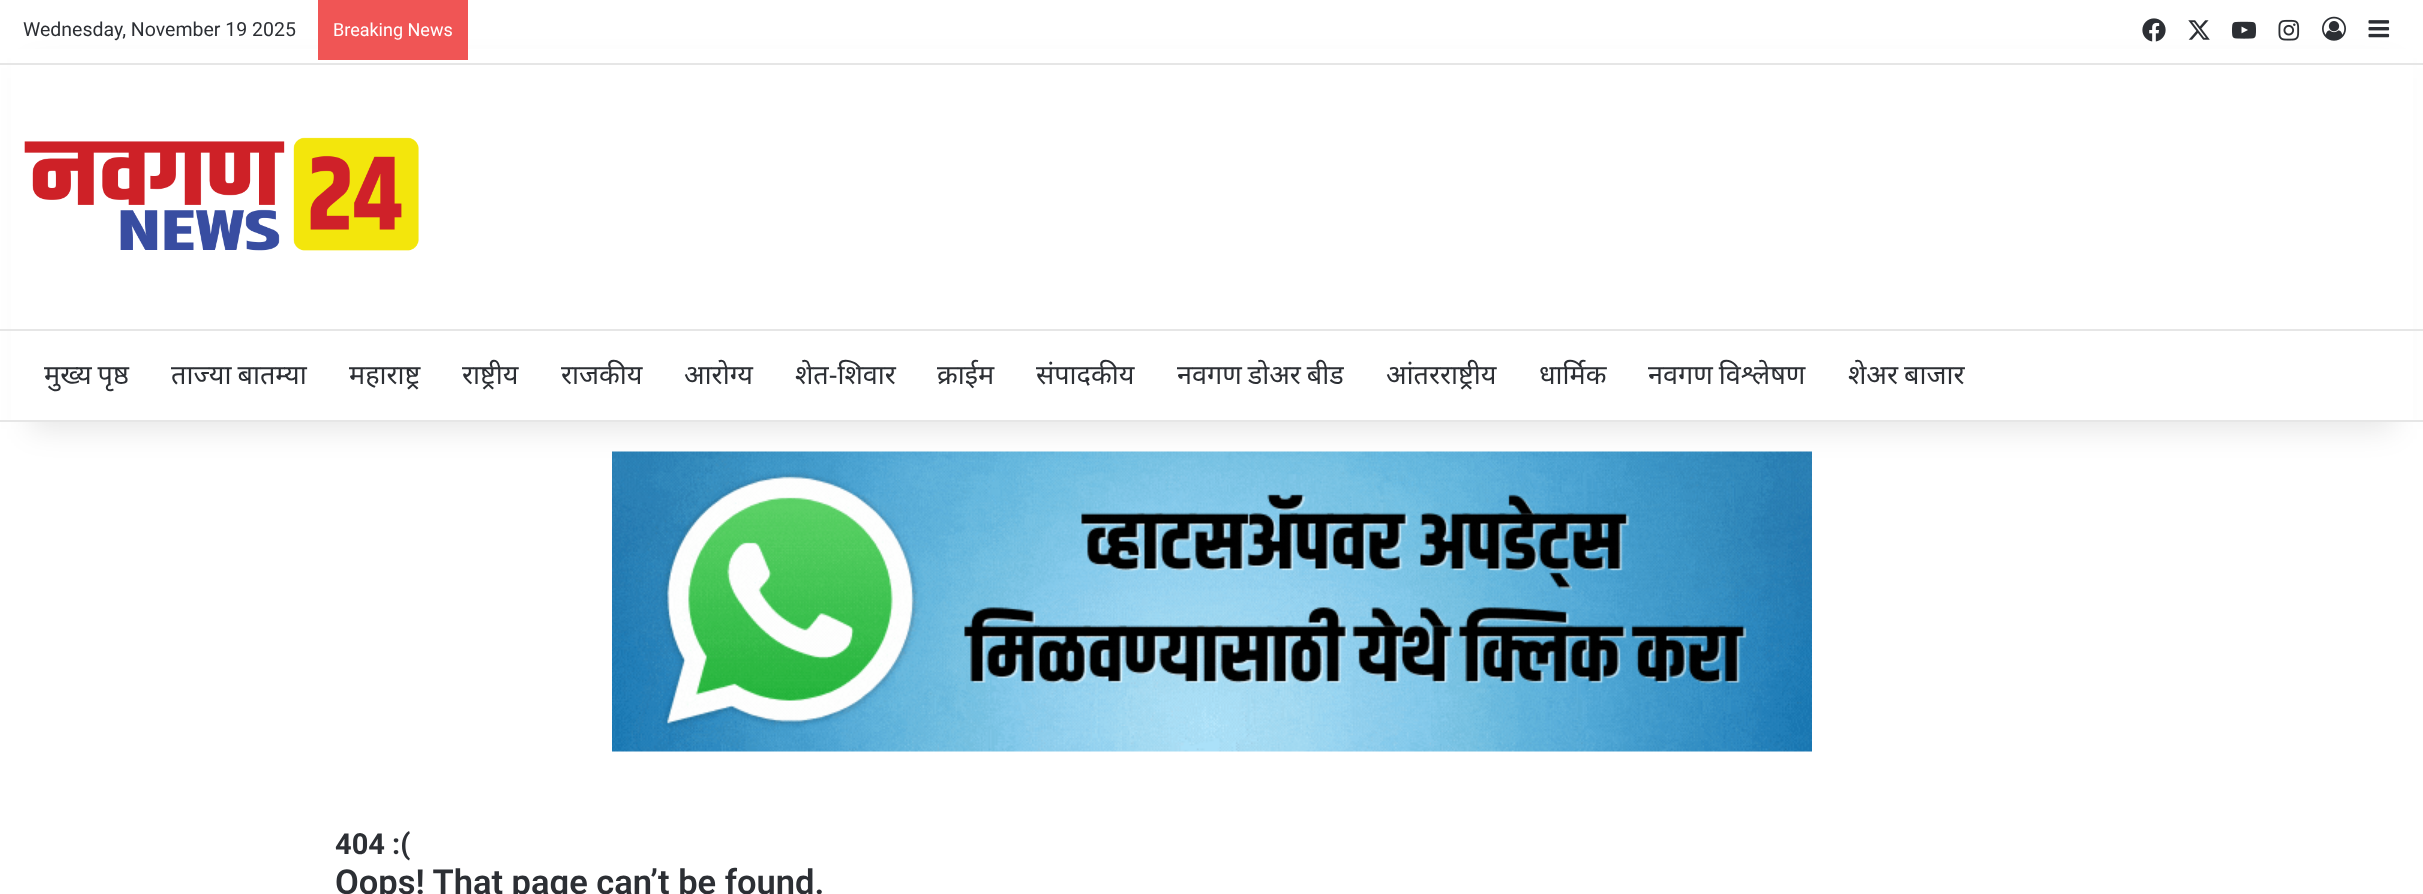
<?xml version="1.0" encoding="UTF-8"?>
<svg xmlns="http://www.w3.org/2000/svg" xmlns:xlink="http://www.w3.org/1999/xlink" width="2423" height="894">
  <rect width="100%" height="100%" fill="#ffffff" />
  <image x="612" y="451" width="1200" height="301" xlink:href="image8.png" />
  <rect x="30" y="68" width="2364" height="361" fill="#000000" fill-opacity="0.1" filter="blur(15px)" />
  <rect x="11" y="49" width="2402" height="371" fill="#ffffff" />
  <rect y="63" width="2423" height="2" fill="#e6e6e6" />
  <rect x="318" width="150" height="60" fill="#f05555" />
  <image x="2142" y="18" width="24" height="24" xlink:href="image1.png" />
  <image x="2188" y="20" width="22" height="20" xlink:href="image2.png" />
  <image x="2232" y="21" width="24" height="18" xlink:href="image3.png" />
  <image x="2278" y="19" width="22" height="22" xlink:href="image4.png" />
  <image x="2322" y="16" width="24" height="25" xlink:href="image5.png" />
  <image x="2368" y="20" width="22" height="18" xlink:href="image6.png" />
  <image x="24" y="137" width="395" height="114" xlink:href="image7.png" />
  <rect y="329" width="2423" height="2" fill="#e6e6e6" />
  <rect y="420" width="2423" height="2" fill="#e6e6e6" />
  <text x="23" y="36" style="font-family: Roboto; font-size: 19.5px; fill: #2c2f34">Wednesday, November 19 2025</text>
  <text x="333" y="36" style="font-family: Roboto; font-size: 18px; fill: #ffffff">Breaking News</text>
  <text x="44" y="384" word-spacing="-1" style="font-family: Noto Sans; font-size: 27px; fill: #2c2f34">मुख्य पृष्ठ</text>
  <text x="171" y="384" word-spacing="-1" style="font-family: Noto Sans; font-size: 27px; fill: #2c2f34">ताज्या बातम्या</text>
  <text x="349" y="384" style="font-family: Noto Sans; font-size: 27px; fill: #2c2f34">महाराष्ट्र</text>
  <text x="462" y="384" style="font-family: Noto Sans; font-size: 27px; fill: #2c2f34">राष्ट्रीय</text>
  <text x="561" y="384" style="font-family: Noto Sans; font-size: 27px; fill: #2c2f34">राजकीय</text>
  <text x="684" y="384" style="font-family: Noto Sans; font-size: 27px; fill: #2c2f34">आरोग्य</text>
  <text x="795" y="384" style="font-family: Noto Sans; font-size: 27px; fill: #2c2f34">शेत-शिवार</text>
  <text x="937" y="384" style="font-family: Noto Sans; font-size: 27px; fill: #2c2f34">क्राईम</text>
  <text x="1036" y="384" style="font-family: Noto Sans; font-size: 27px; fill: #2c2f34">संपादकीय</text>
  <text x="1177" y="384" word-spacing="-1" style="font-family: Noto Sans; font-size: 27px; fill: #2c2f34">नवगण डोअर बीड</text>
  <text x="1386" y="384" style="font-family: Noto Sans; font-size: 27px; fill: #2c2f34">आंतरराष्ट्रीय</text>
  <text x="1539" y="384" style="font-family: Noto Sans; font-size: 27px; fill: #2c2f34">धार्मिक</text>
  <text x="1648" y="384" word-spacing="-1" style="font-family: Noto Sans; font-size: 27px; fill: #2c2f34">नवगण विश्लेषण</text>
  <text x="1848" y="384" word-spacing="-1" style="font-family: Noto Sans; font-size: 27px; fill: #2c2f34">शेअर बाजार</text>
  <text x="335" y="854" style="font-family: Roboto; font-size: 29px; font-weight: bold; fill: #2c2f34">404 :(</text>
  <text x="335" y="894" style="font-family: Roboto; font-size: 34.5px; font-weight: 600; fill: #2c2f34">Oops! That page can’t be found.</text>
</svg>
